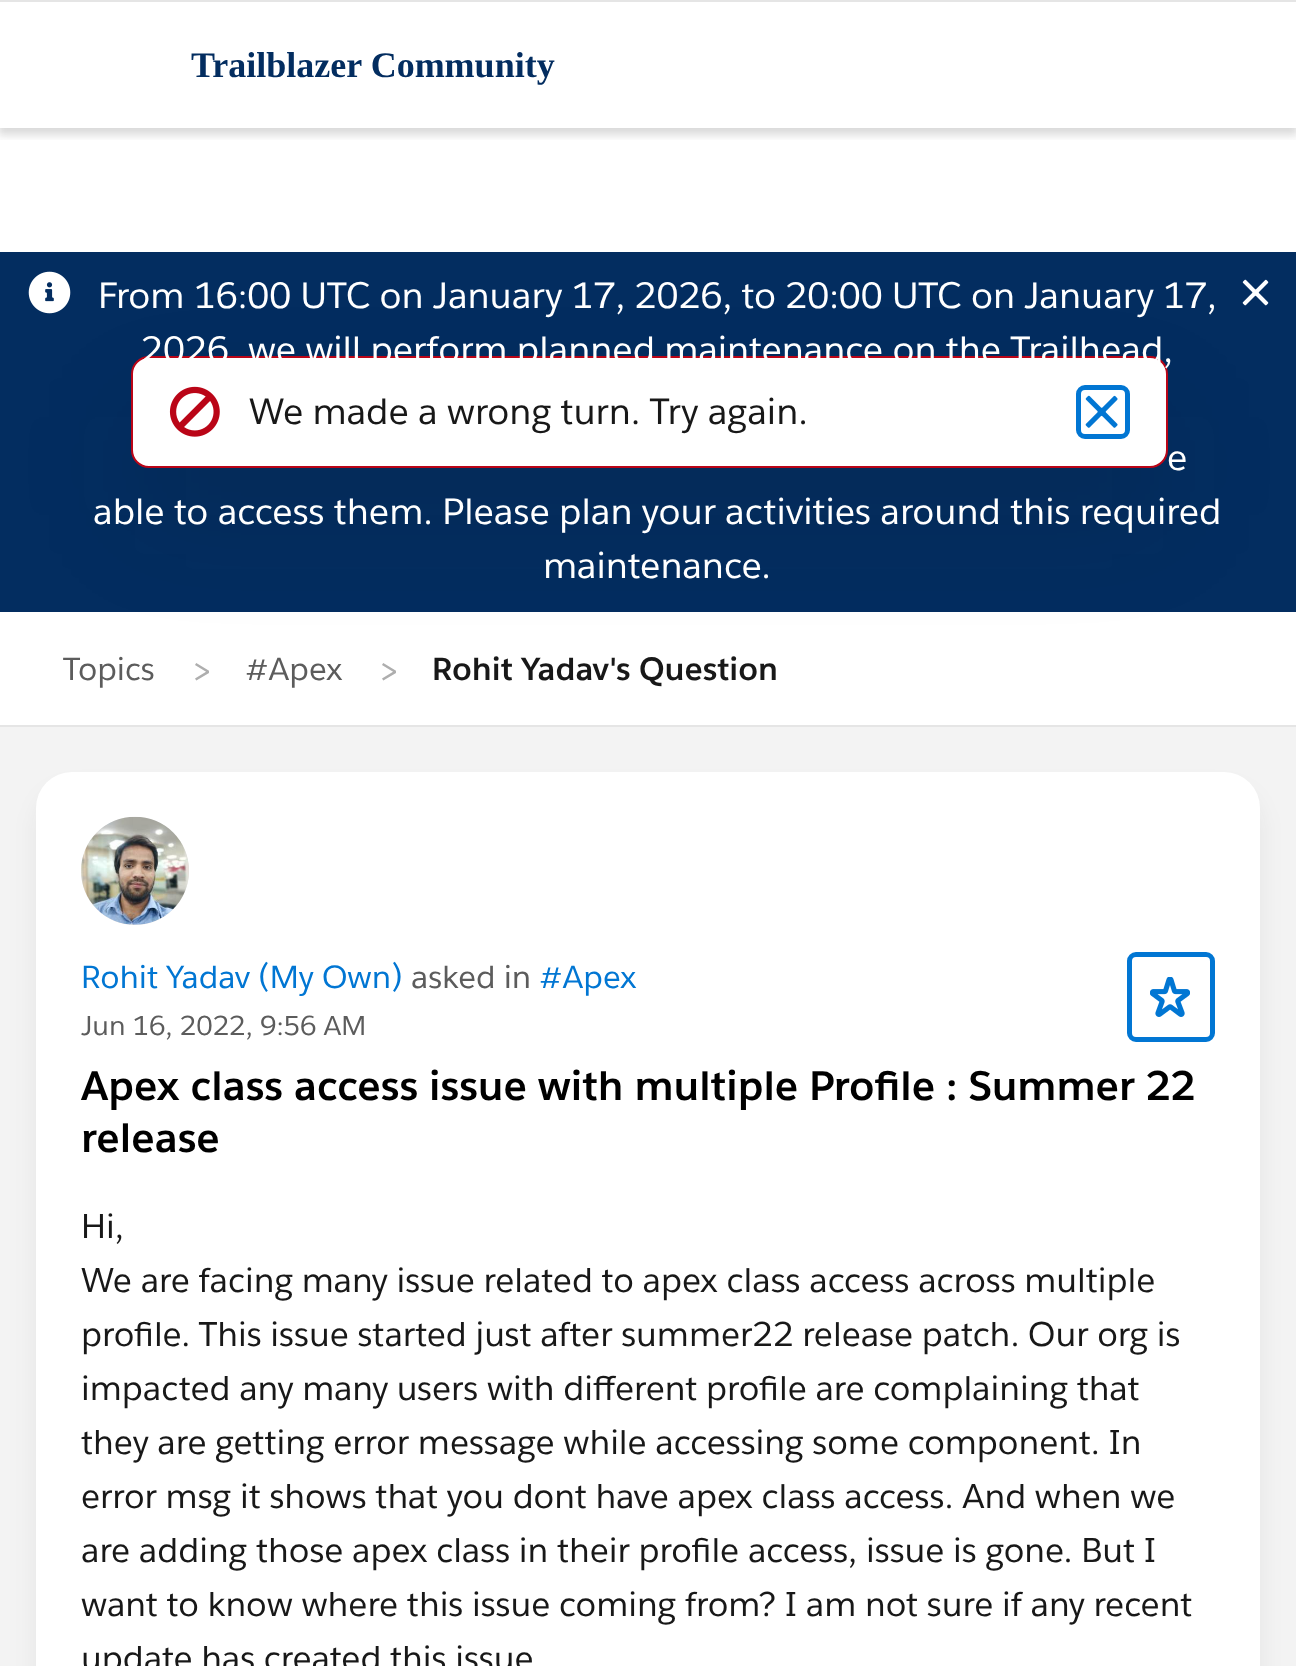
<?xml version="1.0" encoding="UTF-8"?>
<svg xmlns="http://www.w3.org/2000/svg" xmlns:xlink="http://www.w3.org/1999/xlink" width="1296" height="1666">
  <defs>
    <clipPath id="clip1"><rect x="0" y="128" width="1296" height="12" /></clipPath>
  </defs>
  <rect width="100%" height="100%" fill="#ffffff" />
  <g clip-path="url(#clip1)">
    <rect x="-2" y="2" width="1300" height="133" fill="#181818" fill-opacity="0.16" filter="blur(4.5px)" />
  </g>
  <rect width="1296" height="2" fill="#e5e5e5" />
  <rect y="252" width="1296" height="360" fill="#032d60" />
  <image x="28" y="271" width="43" height="43" xlink:href="image1.png" />
  <image x="1242" y="279" width="27" height="27" xlink:href="image2.png" />
  <rect x="135" y="414" width="1028" height="104" rx="14" fill="#181818" fill-opacity="0.12" filter="blur(54px)" />
  <rect x="132" y="357" width="1035" height="110" rx="17" fill="#ffffff" stroke="#ba0517" stroke-width="2" />
  <image x="169" y="386" width="51" height="51" xlink:href="image3.png" />
  <rect x="1078.5" y="387.5" width="49" height="49" rx="6.5" fill="none" stroke="#0176d3" stroke-width="5" />
  <image x="1085" y="395" width="33" height="33" xlink:href="image4.png" />
  <rect y="727" width="1296" height="939" fill="#f3f3f3" />
  <rect y="725" width="1296" height="2" fill="#e5e5e5" />
  <rect x="41" y="794" width="1215" height="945" rx="32" fill="#181818" fill-opacity="0.09" filter="blur(13.5px)" />
  <rect x="36" y="772" width="1224" height="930" rx="36" fill="#ffffff" />
  <circle cx="135" cy="871" r="54" fill="#e5e5e5" />
  <image x="81" y="816" width="108" height="109" xlink:href="image5.png" />
  <rect x="1129.5" y="954.5" width="83" height="85" rx="6.5" fill="none" stroke="#0176d3" stroke-width="5" />
  <image x="1150" y="977" width="40" height="40" xlink:href="image6.png" />
  <text x="191" y="77" style="font-family: Liberation Serif; font-size: 36px; font-weight: bold; fill: #032d60">Trailblazer Community</text>
  <text x="98" y="308" style="font-family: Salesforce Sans; font-size: 36px; fill: #ffffff">From 16:00 UTC on January 17, 2026, to 20:00 UTC on January 17,</text>
  <text x="141" y="362" style="font-family: Salesforce Sans; font-size: 36px; fill: #ffffff">2026, we will perform planned maintenance on the Trailhead,</text>
  <text x="1167" y="470" style="font-family: Salesforce Sans; font-size: 36px; fill: #ffffff">e</text>
  <text x="93" y="524" style="font-family: Salesforce Sans; font-size: 36px; fill: #ffffff">able to access them. Please plan your activities around this required</text>
  <text x="543" y="578" style="font-family: Salesforce Sans; font-size: 36px; fill: #ffffff">maintenance.</text>
  <text x="249" y="424" style="font-family: Salesforce Sans; font-size: 36px; fill: #181818">We made a wrong turn. Try again.</text>
  <text x="63" y="680" style="font-family: Salesforce Sans; font-size: 31.5px; fill: #5c5c5c">Topics</text>
  <text x="191" y="682" style="font-family: Salesforce Sans; font-size: 36px; fill: #aeaeae">&gt;</text>
  <text x="245" y="680" style="font-family: Salesforce Sans; font-size: 31.5px; fill: #5c5c5c">#Apex</text>
  <text x="378" y="682" style="font-family: Salesforce Sans; font-size: 36px; fill: #aeaeae">&gt;</text>
  <text x="432" y="680" style="font-family: Salesforce Sans; font-size: 31.5px; font-weight: bold; fill: #181818">Rohit Yadav's Question</text>
  <text x="81" y="988" style="font-family: Salesforce Sans; font-size: 31.5px; fill: #0176d3">Rohit Yadav (My Own)</text>
  <text x="411" y="988" style="font-family: Salesforce Sans; font-size: 31.5px; fill: #5c5c5c">asked in</text>
  <text x="539" y="988" style="font-family: Salesforce Sans; font-size: 31.5px; fill: #0176d3">#Apex</text>
  <text x="81" y="1035" style="font-family: Salesforce Sans; font-size: 27px; fill: #5c5c5c">Jun 16, 2022, 9:56 AM</text>
  <text x="81" y="1100" style="font-family: Salesforce Sans; font-size: 40.5px; font-weight: bold; fill: #000000">Apex class access issue with multiple Profile : Summer 22</text>
  <text x="81" y="1152" style="font-family: Salesforce Sans; font-size: 40.5px; font-weight: bold; fill: #000000">release</text>
  <text x="81" y="1238" style="font-family: Salesforce Sans; font-size: 33.75px; fill: #181818">Hi,</text>
  <text x="81" y="1292" style="font-family: Salesforce Sans; font-size: 33.75px; fill: #181818">We are facing many issue related to apex class access across multiple</text>
  <text x="81" y="1346" style="font-family: Salesforce Sans; font-size: 33.75px; fill: #181818">profile. This issue started just after summer22 release patch. Our org is</text>
  <text x="81" y="1400" style="font-family: Salesforce Sans; font-size: 33.75px; fill: #181818">impacted any many users with different profile are complaining that</text>
  <text x="81" y="1454" style="font-family: Salesforce Sans; font-size: 33.75px; fill: #181818">they are getting error message while accessing some component. In</text>
  <text x="81" y="1508" style="font-family: Salesforce Sans; font-size: 33.75px; fill: #181818">error msg it shows that you dont have apex class access. And when we</text>
  <text x="81" y="1562" style="font-family: Salesforce Sans; font-size: 33.75px; fill: #181818">are adding those apex class in their profile access, issue is gone. But I</text>
  <text x="81" y="1616" style="font-family: Salesforce Sans; font-size: 33.75px; fill: #181818">want to know where this issue coming from? I am not sure if any recent</text>
  <text x="81" y="1670" style="font-family: Salesforce Sans; font-size: 33.75px; fill: #181818">update has created this issue</text>
</svg>
